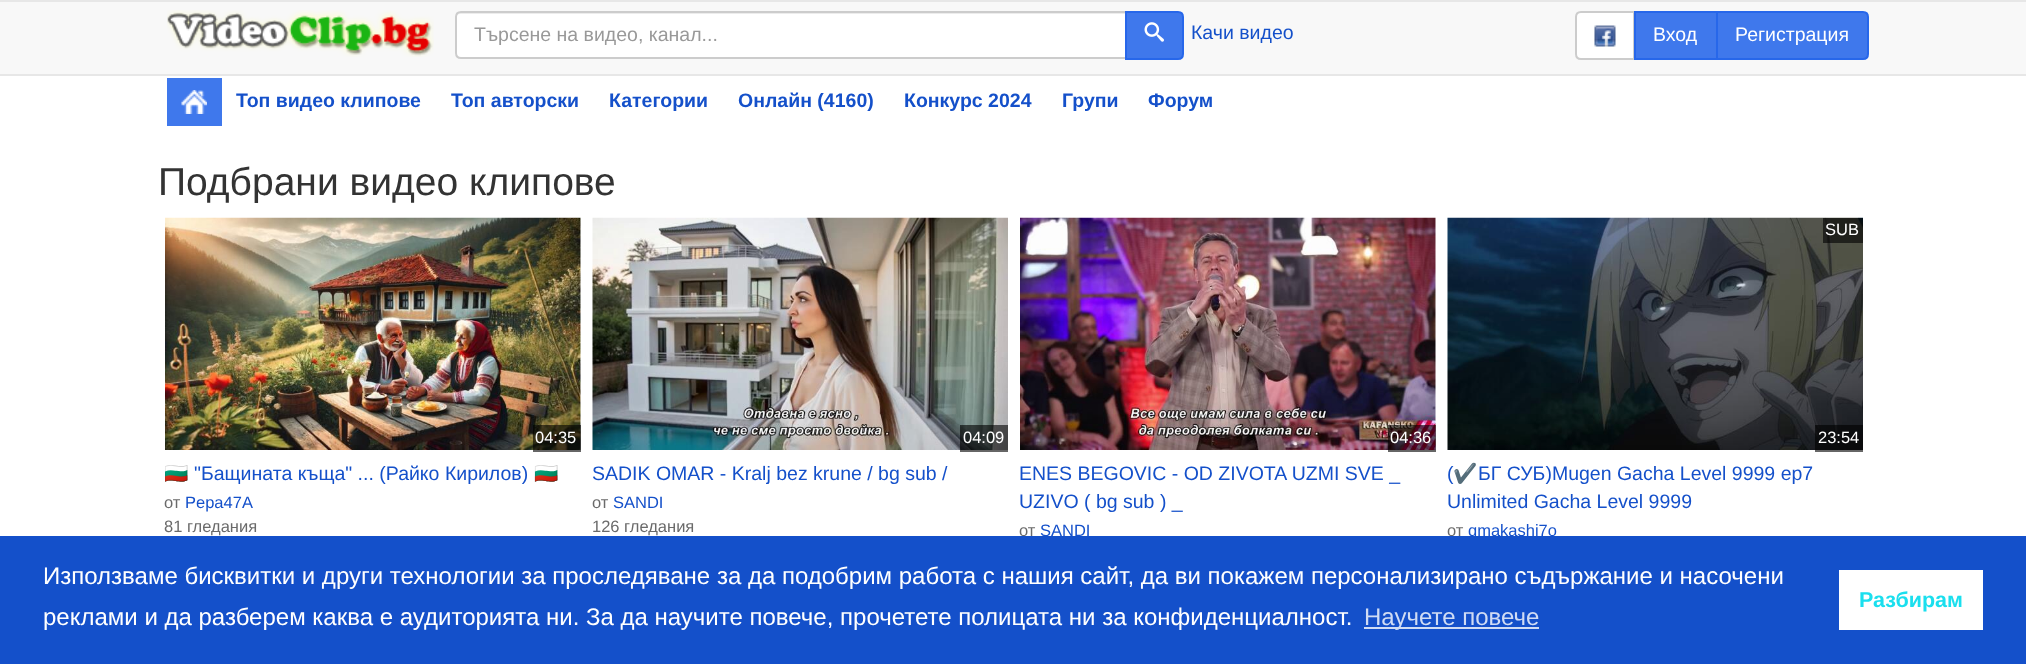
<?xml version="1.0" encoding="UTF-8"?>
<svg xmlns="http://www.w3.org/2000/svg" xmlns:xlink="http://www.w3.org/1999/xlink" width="2026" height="664">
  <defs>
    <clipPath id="clip1"><rect x="165" y="461" width="416" height="28" /></clipPath>
  </defs>
  <rect width="100%" height="100%" fill="#ffffff" />
  <rect y="2" width="2026" height="72" fill="#f8f8f8" />
  <rect width="2026" height="2" fill="#e7e7e7" />
  <rect y="74" width="2026" height="2" fill="#e7e7e7" />
  <image x="167" y="10" width="267" height="47" xlink:href="image1.png" />
  <path d="M 461 11 h 666 v 48 h -666 c -3.5 0 -6 -2.5 -6 -6 v -36 c 0 -3.5 2.5 -6 6 -6 z" fill="#ffffff" />
  <path d="M 460 14 h 665 v -2 h -664 c -3 0 -5 3 -5 6 c 0 -2 2 -4 4 -4 z" fill="#ececec" />
  <path d="M 461 12 h 665 v 46 h -665 c -3 0 -5 -2 -5 -5 v -36 c 0 -3 2 -5 5 -5 z" fill="none" stroke="#cccccc" stroke-width="2" />
  <path d="M 1126 12 h 52 c 3 0 5 2 5 5 v 37 c 0 3 -2 5 -5 5 h -52 z" fill="#3f78ec" stroke="#2767ea" stroke-width="2" />
  <image x="1144" y="22" width="20" height="20" xlink:href="image2.png" />
  <path d="M 1581 12 h 53 v 47 h -53 c -3 0 -5 -2 -5 -5 v -37 c 0 -3 2 -5 5 -5 z" fill="#ffffff" stroke="#cccccc" stroke-width="2" />
  <image x="1594" y="25" width="22" height="22" xlink:href="image3.png" />
  <rect x="1635" y="12" width="82" height="47" fill="#3f78ec" stroke="#2767ea" stroke-width="2" />
  <path d="M 1717 12 h 146 c 3 0 5 2 5 5 v 37 c 0 3 -2 5 -5 5 h -146 z" fill="#3f78ec" stroke="#2767ea" stroke-width="2" />
  <rect x="167" y="78" width="55" height="48" fill="#3f78ec" />
  <image x="181" y="90" width="26" height="24" xlink:href="image4.png" />
  <image x="165" y="217" width="416" height="233" xlink:href="image5.png" />
  <rect x="533" y="425" width="48" height="27" fill="#000000" fill-opacity="0.6" />
  <image x="592" y="217" width="416" height="233" xlink:href="image6.png" />
  <rect x="960" y="425" width="48" height="27" fill="#000000" fill-opacity="0.6" />
  <image x="1020" y="217" width="416" height="233" xlink:href="image7.png" />
  <rect x="1388" y="425" width="48" height="27" fill="#000000" fill-opacity="0.6" />
  <image x="1447" y="217" width="416" height="233" xlink:href="image8.png" />
  <rect x="1823" y="218" width="40" height="25" fill="#000000" fill-opacity="0.6" />
  <rect x="1815" y="425" width="48" height="27" fill="#000000" fill-opacity="0.6" />
  <text x="474" y="41" style="font-family: Liberation Sans; font-size: 19.5px; fill: #999999">Търсене на видео, канал...</text>
  <text x="1191" y="39" style="font-family: Liberation Sans; font-size: 19.5px; fill: #1450ca">Качи видео</text>
  <text x="1653" y="41" style="font-family: Liberation Sans; font-size: 19.5px; fill: #ffffff">Вход</text>
  <text x="1735" y="41" style="font-family: Liberation Sans; font-size: 19.5px; fill: #ffffff">Регистрация</text>
  <text x="236" y="107" style="font-family: Liberation Sans; font-size: 19.5px; font-weight: bold; fill: #1450ca">Топ видео клипове</text>
  <text x="451" y="107" style="font-family: Liberation Sans; font-size: 19.5px; font-weight: bold; fill: #1450ca">Топ авторски</text>
  <text x="609" y="107" style="font-family: Liberation Sans; font-size: 19.5px; font-weight: bold; fill: #1450ca">Категории</text>
  <text x="738" y="107" style="font-family: Liberation Sans; font-size: 19.5px; font-weight: bold; fill: #1450ca">Онлайн (4160)</text>
  <text x="904" y="107" style="font-family: Liberation Sans; font-size: 19.5px; font-weight: bold; fill: #1450ca">Конкурс 2024</text>
  <text x="1062" y="107" style="font-family: Liberation Sans; font-size: 19.5px; font-weight: bold; fill: #1450ca">Групи</text>
  <text x="1148" y="107" style="font-family: Liberation Sans; font-size: 19.5px; font-weight: bold; fill: #1450ca">Форум</text>
  <text x="158" y="195" style="font-family: Liberation Sans; font-size: 39px; fill: #333333">Подбрани видео клипове</text>
  <text x="535" y="443" style="font-family: Liberation Sans; font-size: 16.5px; fill: #ffffff">04:35</text>
  <g clip-path="url(#clip1)">
    <text x="164" y="480" style="font-family: Noto Color Emoji; font-size: 19.5px; fill: #1450ca">🇧🇬</text>
  </g>
  <text x="194" y="480" style="font-family: Liberation Sans; font-size: 19.5px; fill: #1450ca">"Бащината къща" ... (Райко Кирилов)</text>
  <text x="534" y="480" style="font-family: Noto Color Emoji; font-size: 19.5px; fill: #1450ca">🇧🇬</text>
  <text x="164" y="508" style="font-family: Liberation Sans; font-size: 16.5px; fill: #6a6a6a">от</text>
  <text x="185" y="508" style="font-family: Liberation Sans; font-size: 16.5px; fill: #1450ca">Pepa47A</text>
  <text x="164" y="532" style="font-family: Liberation Sans; font-size: 16.5px; fill: #6a6a6a">81 гледания</text>
  <text x="963" y="443" style="font-family: Liberation Sans; font-size: 16.5px; fill: #ffffff">04:09</text>
  <text x="592" y="480" style="font-family: Liberation Sans; font-size: 19.5px; fill: #1450ca">SADIK OMAR - Kralj bez krune / bg sub /</text>
  <text x="592" y="508" style="font-family: Liberation Sans; font-size: 16.5px; fill: #6a6a6a">от</text>
  <text x="613" y="508" style="font-family: Liberation Sans; font-size: 16.5px; fill: #1450ca">SANDI</text>
  <text x="592" y="532" style="font-family: Liberation Sans; font-size: 16.5px; fill: #6a6a6a">126 гледания</text>
  <text x="1390" y="443" style="font-family: Liberation Sans; font-size: 16.5px; fill: #ffffff">04:36</text>
  <text x="1019" y="480" style="font-family: Liberation Sans; font-size: 19.5px; fill: #1450ca">ENES BEGOVIC - OD ZIVOTA UZMI SVE _</text>
  <text x="1019" y="508" style="font-family: Liberation Sans; font-size: 19.5px; fill: #1450ca">UZIVO ( bg sub ) _</text>
  <text x="1019" y="536" style="font-family: Liberation Sans; font-size: 16.5px; fill: #6a6a6a">от</text>
  <text x="1040" y="536" style="font-family: Liberation Sans; font-size: 16.5px; fill: #1450ca">SANDI</text>
  <text x="1825" y="235" style="font-family: Liberation Sans; font-size: 16.5px; fill: #ffffff">SUB</text>
  <text x="1818" y="443" style="font-family: Liberation Sans; font-size: 16.5px; fill: #ffffff">23:54</text>
  <text x="1447" y="480" style="font-family: Liberation Sans; font-size: 19.5px; fill: #1450ca">(</text>
  <text x="1453" y="480" style="font-family: Noto Color Emoji; font-size: 19.5px; fill: #1450ca">✔️</text>
  <text x="1478" y="480" style="font-family: Liberation Sans; font-size: 19.5px; fill: #1450ca">БГ СУБ)Mugen Gacha Level 9999 ep7</text>
  <text x="1447" y="508" style="font-family: Liberation Sans; font-size: 19.5px; fill: #1450ca">Unlimited Gacha Level 9999</text>
  <text x="1447" y="536" style="font-family: Liberation Sans; font-size: 16.5px; fill: #6a6a6a">от</text>
  <text x="1468" y="536" style="font-family: Liberation Sans; font-size: 16.5px; fill: #1450ca">qmakashi7o</text>
  <rect y="536" width="2026" height="128" fill="#1450ca" />
  <text x="43" y="584" style="font-family: Liberation Sans; font-size: 24px; fill: #ffffff">Използваме бисквитки и други технологии за проследяване за да подобрим работа с нашия сайт, да ви покажем персонализирано съдържание и насочени</text>
  <text x="43" y="625" style="font-family: Liberation Sans; font-size: 24px; fill: #ffffff">реклами и да разберем каква е аудиторията ни. За да научите повече, прочетете полицата ни за конфиденциалност.</text>
  <rect x="1364" y="627" width="175" height="2" fill="#d0dcf4" />
  <text x="1364" y="625" style="font-family: Liberation Sans; font-size: 24px; fill: #d0dcf4">Научете повече</text>
  <rect x="1839" y="570" width="144" height="60" fill="#ffffff" />
  <text x="1859" y="607" style="font-family: Liberation Sans; font-size: 21.5px; font-weight: bold; fill: #1adfee">Разбирам</text>
</svg>
